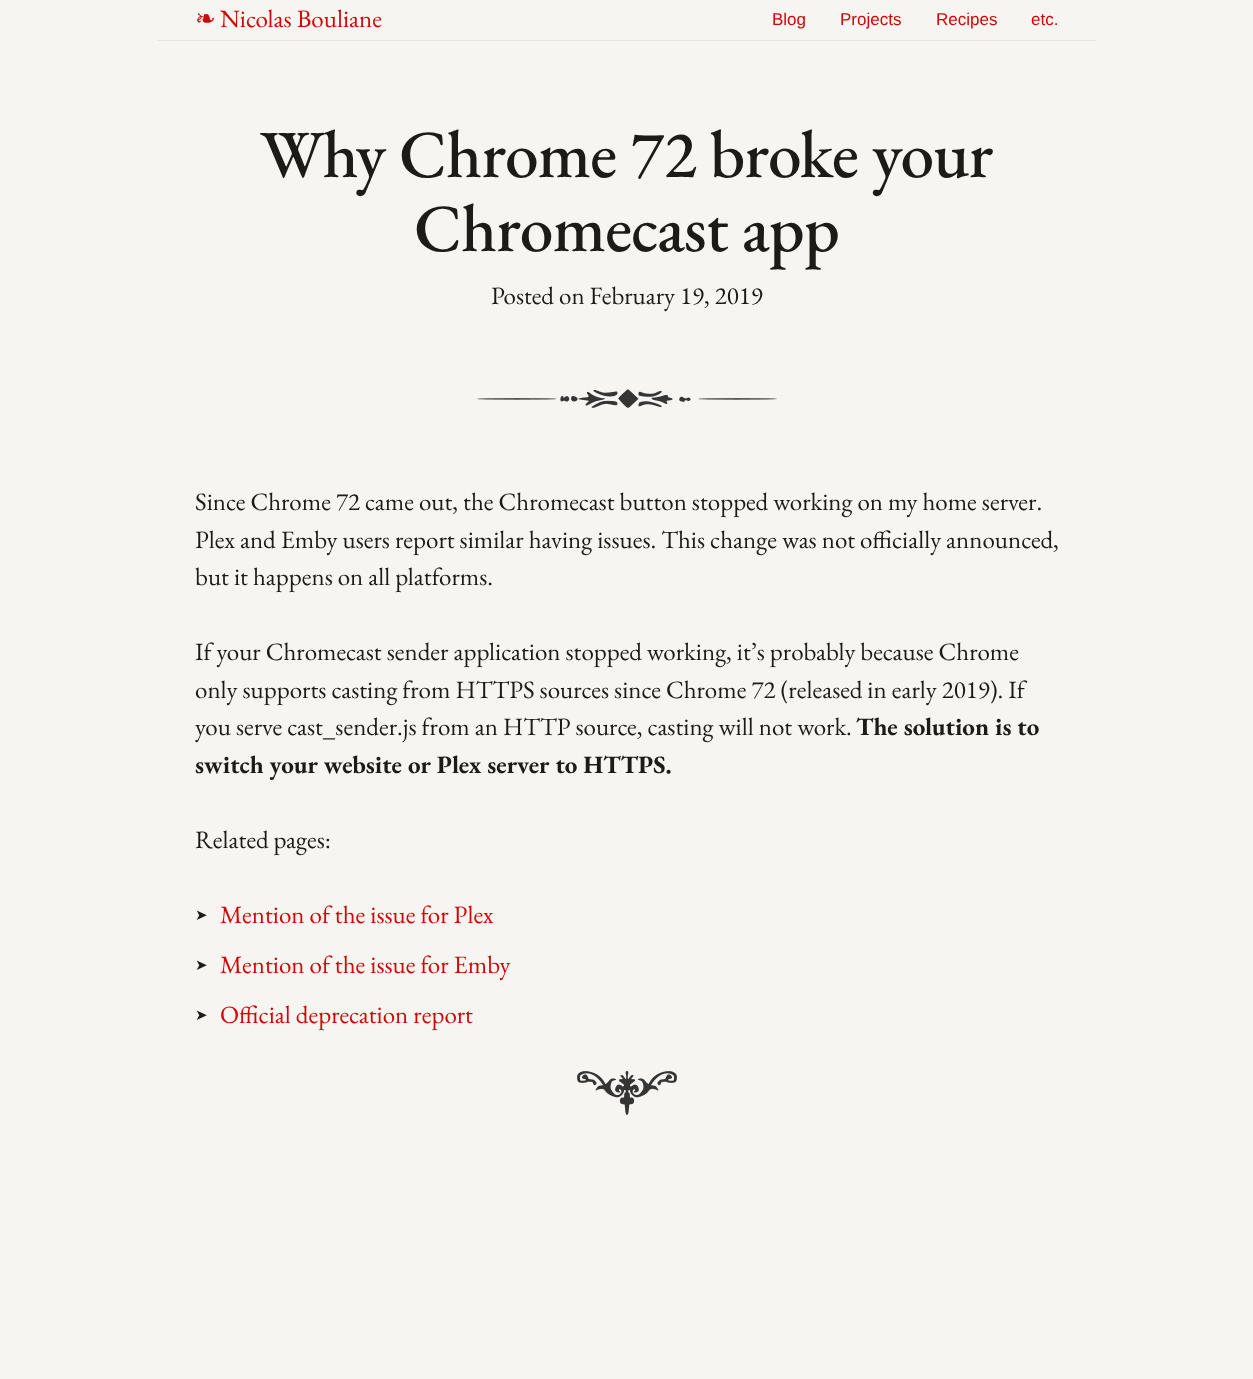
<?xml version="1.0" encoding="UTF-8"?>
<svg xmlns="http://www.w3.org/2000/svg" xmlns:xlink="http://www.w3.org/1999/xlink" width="1253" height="1379">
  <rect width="100%" height="100%" fill="#f6f5f1" />
  <rect x="157" y="40" width="939" height="1" fill="#e6e3e1" />
  <image x="577" y="1071" width="100" height="44" xlink:href="image1.png" />
  <image x="477" y="389" width="300" height="19" xlink:href="image2.png" />
  <text x="195" y="27" style="font-family: DejaVu Sans; font-size: 25px; fill: #d00707">❧</text>
  <text x="220" y="27" style="font-family: EB Garamond; font-size: 25px; fill: #d00707">Nicolas Bouliane</text>
  <text x="772" y="25" style="font-family: Liberation Sans; font-size: 17px; fill: #d00707">Blog</text>
  <text x="840" y="25" style="font-family: Liberation Sans; font-size: 17px; fill: #d00707">Projects</text>
  <text x="936" y="25" style="font-family: Liberation Sans; font-size: 17px; fill: #d00707">Recipes</text>
  <text x="1031" y="25" style="font-family: Liberation Sans; font-size: 17px; fill: #d00707">etc.</text>
  <text x="260" y="177" style="font-family: EB Garamond; font-size: 67.5px; font-weight: 500; letter-spacing: -0.7px; fill: #1d1b16">Why Chrome 72 broke your</text>
  <text x="414" y="251" style="font-family: EB Garamond; font-size: 67.5px; font-weight: 500; letter-spacing: -0.7px; fill: #1d1b16">Chromecast app</text>
  <text x="491" y="304" style="font-family: EB Garamond; font-size: 25px; fill: #1d1b16">Posted on February 19, 2019</text>
  <text x="195" y="510" style="font-family: EB Garamond; font-size: 25px; fill: #1d1b16">Since Chrome 72 came out, the Chromecast button stopped working on my home server.</text>
  <text x="195" y="548" style="font-family: EB Garamond; font-size: 25px; fill: #1d1b16">Plex and Emby users report similar having issues. This change was not officially announced,</text>
  <text x="195" y="585" style="font-family: EB Garamond; font-size: 25px; fill: #1d1b16">but it happens on all platforms.</text>
  <text x="195" y="660" style="font-family: EB Garamond; font-size: 25px; fill: #1d1b16">If your Chromecast sender application stopped working, it’s probably because Chrome</text>
  <text x="195" y="698" style="font-family: EB Garamond; font-size: 25px; fill: #1d1b16">only supports casting from HTTPS sources since Chrome 72 (released in early 2019). If</text>
  <text x="195" y="735" style="font-family: EB Garamond; font-size: 25px; fill: #1d1b16">you serve cast_sender.js from an HTTP source, casting will not work.</text>
  <text x="856" y="735" style="font-family: EB Garamond; font-size: 25px; font-weight: bold; fill: #1d1b16">The solution is to</text>
  <text x="195" y="773" style="font-family: EB Garamond; font-size: 25px; font-weight: bold; fill: #1d1b16">switch your website or Plex server to HTTPS.</text>
  <text x="195" y="848" style="font-family: EB Garamond; font-size: 25px; fill: #1d1b16">Related pages:</text>
  <text x="195" y="920" style="font-family: DejaVu Sans; font-size: 15px; fill: #1d1b16">➤</text>
  <text x="220" y="923" style="font-family: EB Garamond; font-size: 25px; fill: #d00707">Mention of the issue for Plex</text>
  <text x="195" y="970" style="font-family: DejaVu Sans; font-size: 15px; fill: #1d1b16">➤</text>
  <text x="220" y="973" style="font-family: EB Garamond; font-size: 25px; fill: #d00707">Mention of the issue for Emby</text>
  <text x="195" y="1020" style="font-family: DejaVu Sans; font-size: 15px; fill: #1d1b16">➤</text>
  <text x="220" y="1023" style="font-family: EB Garamond; font-size: 25px; fill: #d00707">Official deprecation report</text>
</svg>
